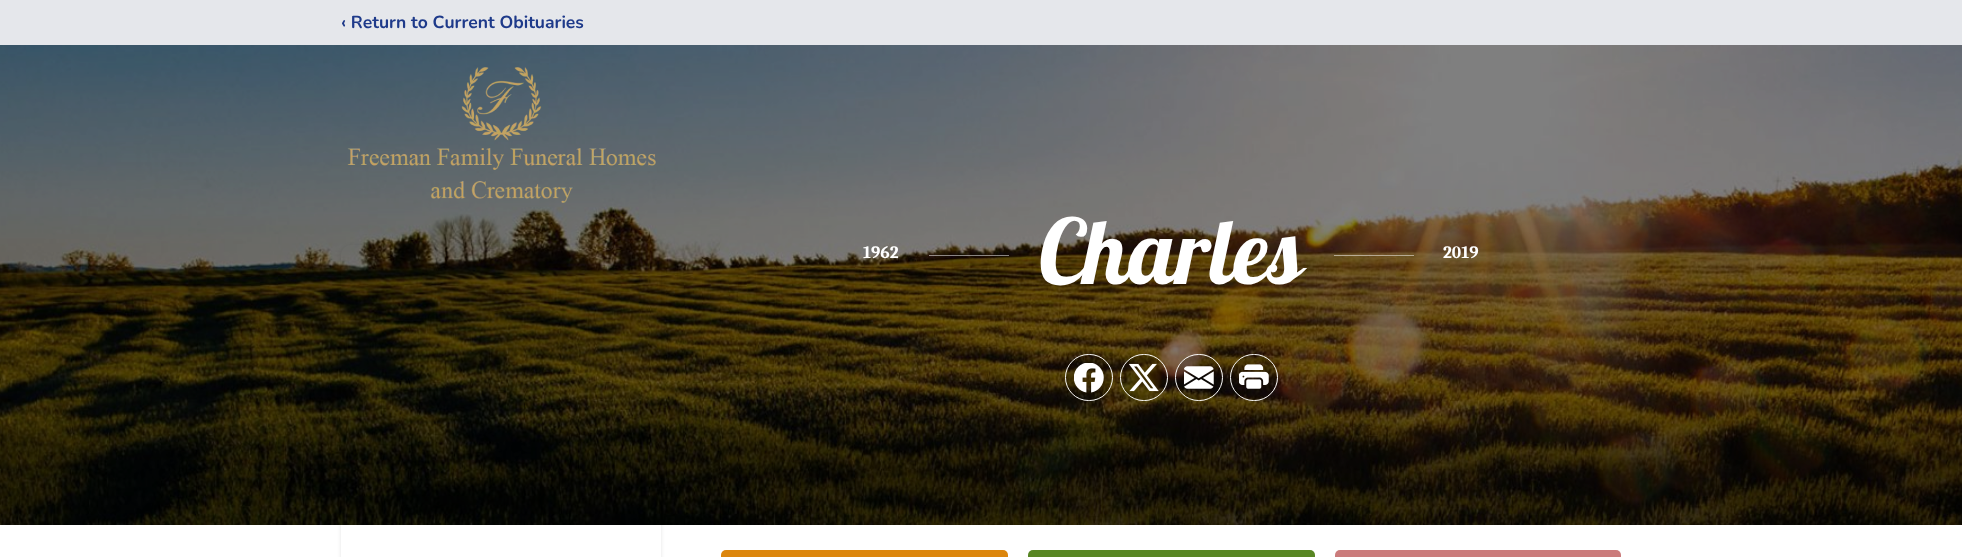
<?xml version="1.0" encoding="UTF-8"?>
<svg xmlns="http://www.w3.org/2000/svg" xmlns:xlink="http://www.w3.org/1999/xlink" width="1962" height="557">
  <style>*{font-kerning:none!important;font-variant-ligatures:none!important}</style>
  <defs>
    <clipPath id="clip1"><path d="M 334 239 h 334 v 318 h -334 z m 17 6 h 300 c 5.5 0 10 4.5 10 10 v 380 c 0 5.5 -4.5 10 -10 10 h -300 c -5.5 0 -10 -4.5 -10 -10 v -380 c 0 -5.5 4.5 -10 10 -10 z" clip-rule="evenodd" /></clipPath>
  </defs>
  <rect width="100%" height="100%" fill="#ffffff" />
  <rect width="1962" height="45" fill="#e5e7eb" />
  <image x="0" y="45" width="1962" height="480" xlink:href="image1.png" />
  <image x="347" y="67" width="309" height="136" xlink:href="image2.png" />
  <g clip-path="url(#clip1)">
    <rect x="341" y="246" width="320" height="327" rx="10" fill="#000000" fill-opacity="0.1" filter="blur(2px)" />
  </g>
  <rect x="929" y="255" width="80" height="1" fill="#ffffff" fill-opacity="0.5" />
  <rect x="1334" y="255" width="80" height="1" fill="#ffffff" fill-opacity="0.5" />
  <rect x="1065.5" y="354.5" width="47" height="46" rx="23" fill="none" stroke="#ffffff" />
  <circle cx="1088.5" cy="377.5" r="22.5" fill="#000000" fill-opacity="0.2" />
  <image x="1074" y="363" width="30" height="30" xlink:href="image3.png" />
  <rect x="1120.5" y="354.5" width="47" height="46" rx="23" fill="none" stroke="#ffffff" />
  <circle cx="1143.5" cy="377.5" r="22.5" fill="#000000" fill-opacity="0.2" />
  <image x="1129" y="363" width="30" height="29" xlink:href="image4.png" />
  <rect x="1175.5" y="354.5" width="47" height="46" rx="23" fill="none" stroke="#ffffff" />
  <circle cx="1198.5" cy="377.5" r="22.5" fill="#000000" fill-opacity="0.2" />
  <image x="1184" y="366" width="30" height="23" xlink:href="image5.png" />
  <rect x="1230.5" y="354.5" width="47" height="46" rx="23" fill="none" stroke="#ffffff" />
  <circle cx="1253.5" cy="377.5" r="22.5" fill="#000000" fill-opacity="0.2" />
  <image x="1239" y="364" width="30" height="25" xlink:href="image6.png" />
  <rect x="721" y="550" width="287" height="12" rx="5" fill="#dc860d" />
  <rect x="1028" y="550" width="287" height="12" rx="5" fill="#588624" />
  <rect x="1335" y="550" width="286" height="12" rx="5" fill="#cb7c7c" />
  <text x="341" y="28" style="font-family: Nunito; font-size: 17.5px; font-weight: bold; fill: #1e3a8a">‹ Return to Current Obituaries</text>
  <text x="863" y="258" style="font-family: Caladea; font-size: 17.5px; font-weight: bold; fill: #ffffff">1962</text>
  <text x="1039" y="284" style="font-family: Lobster; font-size: 90px; fill: #ffffff">Charles</text>
  <text x="1443" y="258" style="font-family: Caladea; font-size: 17.5px; font-weight: bold; fill: #ffffff">2019</text>
</svg>
